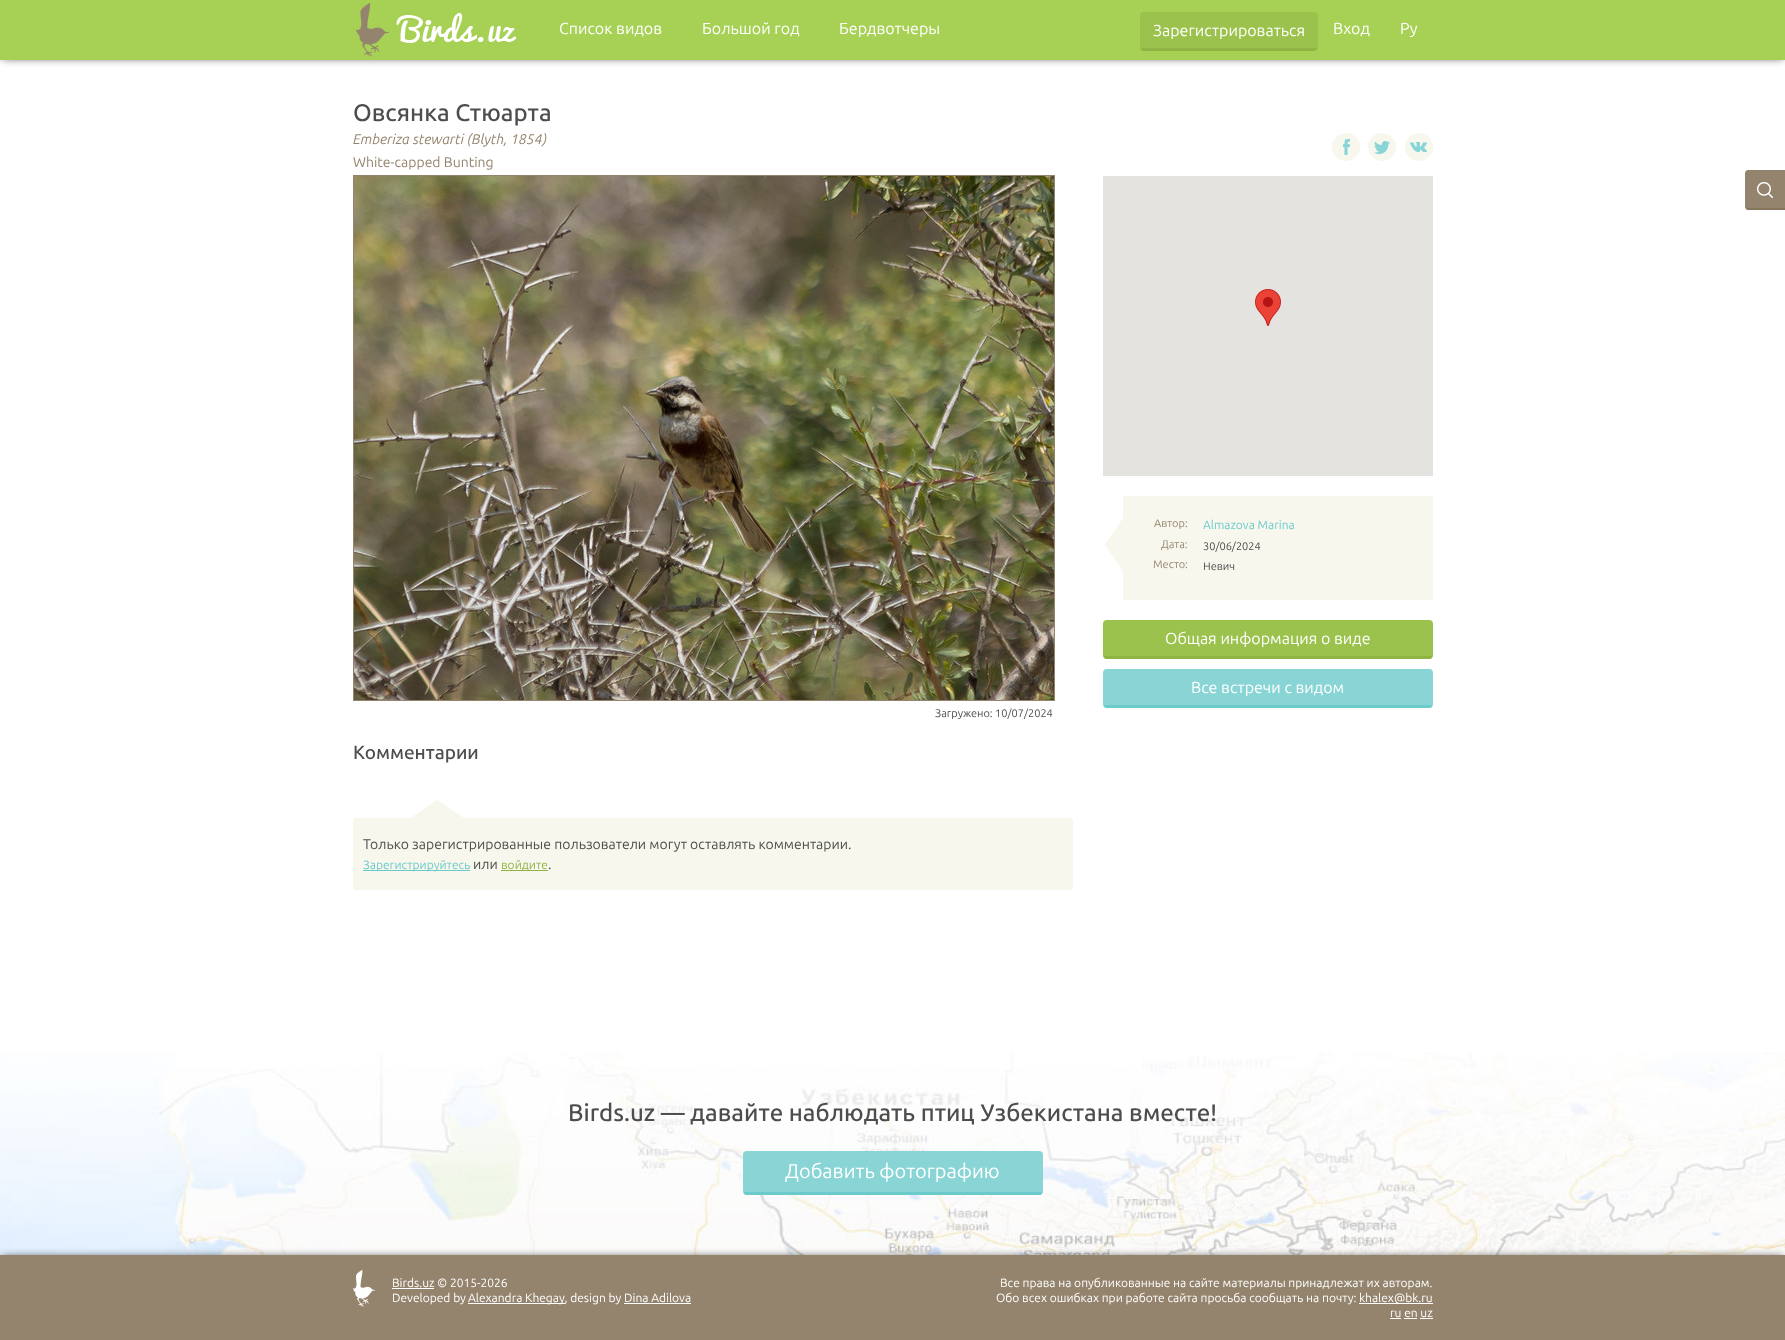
<?xml version="1.0" encoding="UTF-8"?>
<svg xmlns="http://www.w3.org/2000/svg" xmlns:xlink="http://www.w3.org/1999/xlink" width="1785" height="1340">
  <rect width="100%" height="100%" fill="#ffffff" />
  <rect x="2" y="2" width="1781" height="56" fill="#000000" fill-opacity="0.75" filter="blur(4px)" />
  <rect width="1785" height="60" fill="#a7d155" />
  <image x="356" y="3" width="161" height="54" xlink:href="image1.png" />
  <rect x="1140" y="12" width="178" height="39" rx="4" fill="#9bc24c" />
  <path d="M 1144 51 h 170 l 3 -2 v -1 h -1 h -144 h -28 h -3 v 1 c 0 1 2 2 3 2 z" fill="#90b444" />
  <rect x="353.5" y="175.5" width="701" height="525" fill="none" stroke="#94846e" />
  <image x="354" y="176" width="700" height="524" xlink:href="image2.png" />
  <circle cx="1346" cy="147" r="14" fill="#f7f7ed" />
  <image x="1343" y="139" width="7" height="16" xlink:href="image3.png" />
  <circle cx="1382" cy="147" r="14" fill="#f7f7ed" />
  <image x="1374" y="141" width="16" height="13" xlink:href="image4.png" />
  <circle cx="1419" cy="147" r="14" fill="#f7f7ed" />
  <image x="1410" y="142" width="17" height="10" xlink:href="image5.png" />
  <rect x="1103" y="176" width="330" height="300" fill="#e5e3df" />
  <image x="1255" y="289" width="26" height="37" xlink:href="image6.png" />
  <rect x="1123" y="496" width="310" height="104" rx="3" fill="#f7f7ed" />
  <image x="1105" y="518" width="18" height="54" xlink:href="image7.png" />
  <rect x="1103" y="620" width="330" height="39" rx="4" fill="#9bc24c" />
  <path d="M 1107 659 h 322 c 1 0 3 -1 3 -2 v -1 h -3 h -322 h -3 v 1 c 0 1 2 2 3 2 z" fill="#90b444" />
  <rect x="1103" y="669" width="330" height="39" rx="4" fill="#89d5d5" />
  <path d="M 1107 708 h 322 c 1 0 3 -1 3 -2 v -1 h -3 h -322 h -3 v 1 c 0 1 2 2 3 2 z" fill="#6bcbca" />
  <rect x="353" y="818" width="720" height="72" rx="3" fill="#f7f7ed" />
  <image x="410" y="800" width="54" height="18" xlink:href="image8.png" />
  <rect x="363" y="870" width="107" height="1" fill="#6bcbca" />
  <rect x="501" y="870" width="47" height="1" fill="#90b444" />
  <path d="M 1748 170 h 37 v 40 h -37 c -1.5 0 -3 -1.5 -3 -3 v -34 c 0 -1.5 1.5 -3 3 -3 z" fill="#94846e" />
  <rect x="1747" y="208" width="38" height="2" fill="#86745b" />
  <image x="1757" y="182" width="16" height="16" xlink:href="image9.png" />
  <image x="0" y="1052" width="1785" height="203" xlink:href="image10.png" />
  <rect x="743" y="1151" width="300" height="44" rx="4" fill="#89d5d5" />
  <path d="M 747 1195 h 292 c 1 0 3 -1 3 -2 v -1 h -2 h -293 h -3 v 1 c 0 1 2 2 3 2 z" fill="#6bcbca" />
  <rect x="2" y="1257" width="1781" height="81" fill="#000000" fill-opacity="0.75" filter="blur(4px)" />
  <rect y="1255" width="1785" height="85" fill="#94846e" />
  <image x="353" y="1270" width="22" height="37" xlink:href="image11.png" />
  <rect x="392" y="1288" width="42" height="1" fill="#ffffff" />
  <rect x="468" y="1303" width="97" height="1" fill="#ffffff" />
  <rect x="624" y="1303" width="67" height="1" fill="#ffffff" />
  <rect x="1359" y="1303" width="74" height="1" fill="#ffffff" />
  <rect x="1390" y="1318" width="11" height="1" fill="#ffffff" />
  <rect x="1404" y="1318" width="13" height="1" fill="#ffffff" />
  <rect x="1420" y="1318" width="13" height="1" fill="#ffffff" />
  <text x="559" y="34" style="font-family: Ubuntu; font-size: 16px; fill: #ffffff">Список видов</text>
  <text x="702" y="34" style="font-family: Ubuntu; font-size: 16px; fill: #ffffff">Большой год</text>
  <text x="839" y="34" style="font-family: Ubuntu; font-size: 16px; fill: #ffffff">Бердвотчеры</text>
  <text x="1153" y="36" style="font-family: Ubuntu; font-size: 16px; fill: #ffffff">Зарегистрироваться</text>
  <text x="1333" y="34" style="font-family: Ubuntu; font-size: 16px; fill: #ffffff">Вход</text>
  <text x="1400" y="34" style="font-family: Ubuntu; font-size: 16px; fill: #ffffff">Ру</text>
  <text x="353" y="121" style="font-family: Ubuntu; font-size: 24px; font-weight: 500; fill: #4d4d4d">Овсянка Стюарта</text>
  <text x="353" y="144" style="font-family: Ubuntu; font-size: 14px; font-style: italic; fill: #94846e">Emberiza stewarti (Blyth, 1854)</text>
  <text x="353" y="167" style="font-family: Ubuntu; font-size: 14px; fill: #94846e">White-capped Bunting</text>
  <text x="935" y="717" style="font-family: Ubuntu; font-size: 11px; fill: #4d4d4d">Загружено: 10/07/2024</text>
  <text x="1154" y="527" style="font-family: Ubuntu; font-size: 11px; fill: #94846e">Автор:</text>
  <text x="1161" y="548" style="font-family: Ubuntu; font-size: 11px; fill: #94846e">Дата:</text>
  <text x="1153" y="568" style="font-family: Ubuntu; font-size: 11px; fill: #94846e">Место:</text>
  <text x="1203" y="529" style="font-family: Ubuntu; font-size: 12px; fill: #6bcbca">Almazova Marina</text>
  <text x="1203" y="550" style="font-family: Ubuntu; font-size: 11px; fill: #4d4d4d">30/06/2024</text>
  <text x="1203" y="570" style="font-family: Ubuntu; font-size: 11px; fill: #4d4d4d">Невич</text>
  <text x="1165" y="644" style="font-family: Ubuntu; font-size: 16px; fill: #ffffff">Общая информация о виде</text>
  <text x="1191" y="693" style="font-family: Ubuntu; font-size: 16px; fill: #ffffff">Все встречи с видом</text>
  <text x="353" y="759" style="font-family: Ubuntu; font-size: 19px; font-weight: 500; fill: #4d4d4d">Комментарии</text>
  <text x="363" y="849" style="font-family: Ubuntu; font-size: 14px; fill: #4d4d4d">Только зарегистрированные пользователи могут оставлять комментарии.</text>
  <text x="363" y="869" style="font-family: Ubuntu; font-size: 12px; fill: #6bcbca">Зарегистрируйтесь</text>
  <text x="473" y="869" style="font-family: Ubuntu; font-size: 14px; fill: #4d4d4d">или</text>
  <text x="501" y="869" style="font-family: Ubuntu; font-size: 12px; fill: #90b444">войдите</text>
  <text x="548" y="869" style="font-family: Ubuntu; font-size: 14px; fill: #4d4d4d">.</text>
  <text x="568" y="1121" style="font-family: Ubuntu; font-size: 24px; font-weight: 500; fill: #4d4d4d">Birds.uz — давайте наблюдать птиц Узбекистана вместе!</text>
  <text x="785" y="1178" style="font-family: Ubuntu; font-size: 20px; fill: #ffffff">Добавить фотографию</text>
  <text x="392" y="1287" style="font-family: Ubuntu; font-size: 12px; fill: #ffffff">Birds.uz © 2015-2026</text>
  <text x="392" y="1302" style="font-family: Ubuntu; font-size: 12px; fill: #ffffff">Developed by</text>
  <text x="468" y="1302" style="font-family: Ubuntu; font-size: 12px; fill: #ffffff">Alexandra Khegay, design by Dina Adilova</text>
  <text x="1000" y="1287" style="font-family: Ubuntu; font-size: 12px; fill: #ffffff">Все права на опубликованные на сайте материалы принадлежат их авторам.</text>
  <text x="996" y="1302" style="font-family: Ubuntu; font-size: 12px; fill: #ffffff">Обо всех ошибках при работе сайта просьба сообщать на почту:</text>
  <text x="1359" y="1302" style="font-family: Ubuntu; font-size: 12px; fill: #ffffff">khalex@bk.ru</text>
  <text x="1390" y="1317" style="font-family: Ubuntu; font-size: 12px; fill: #ffffff">ru en uz</text>
</svg>
